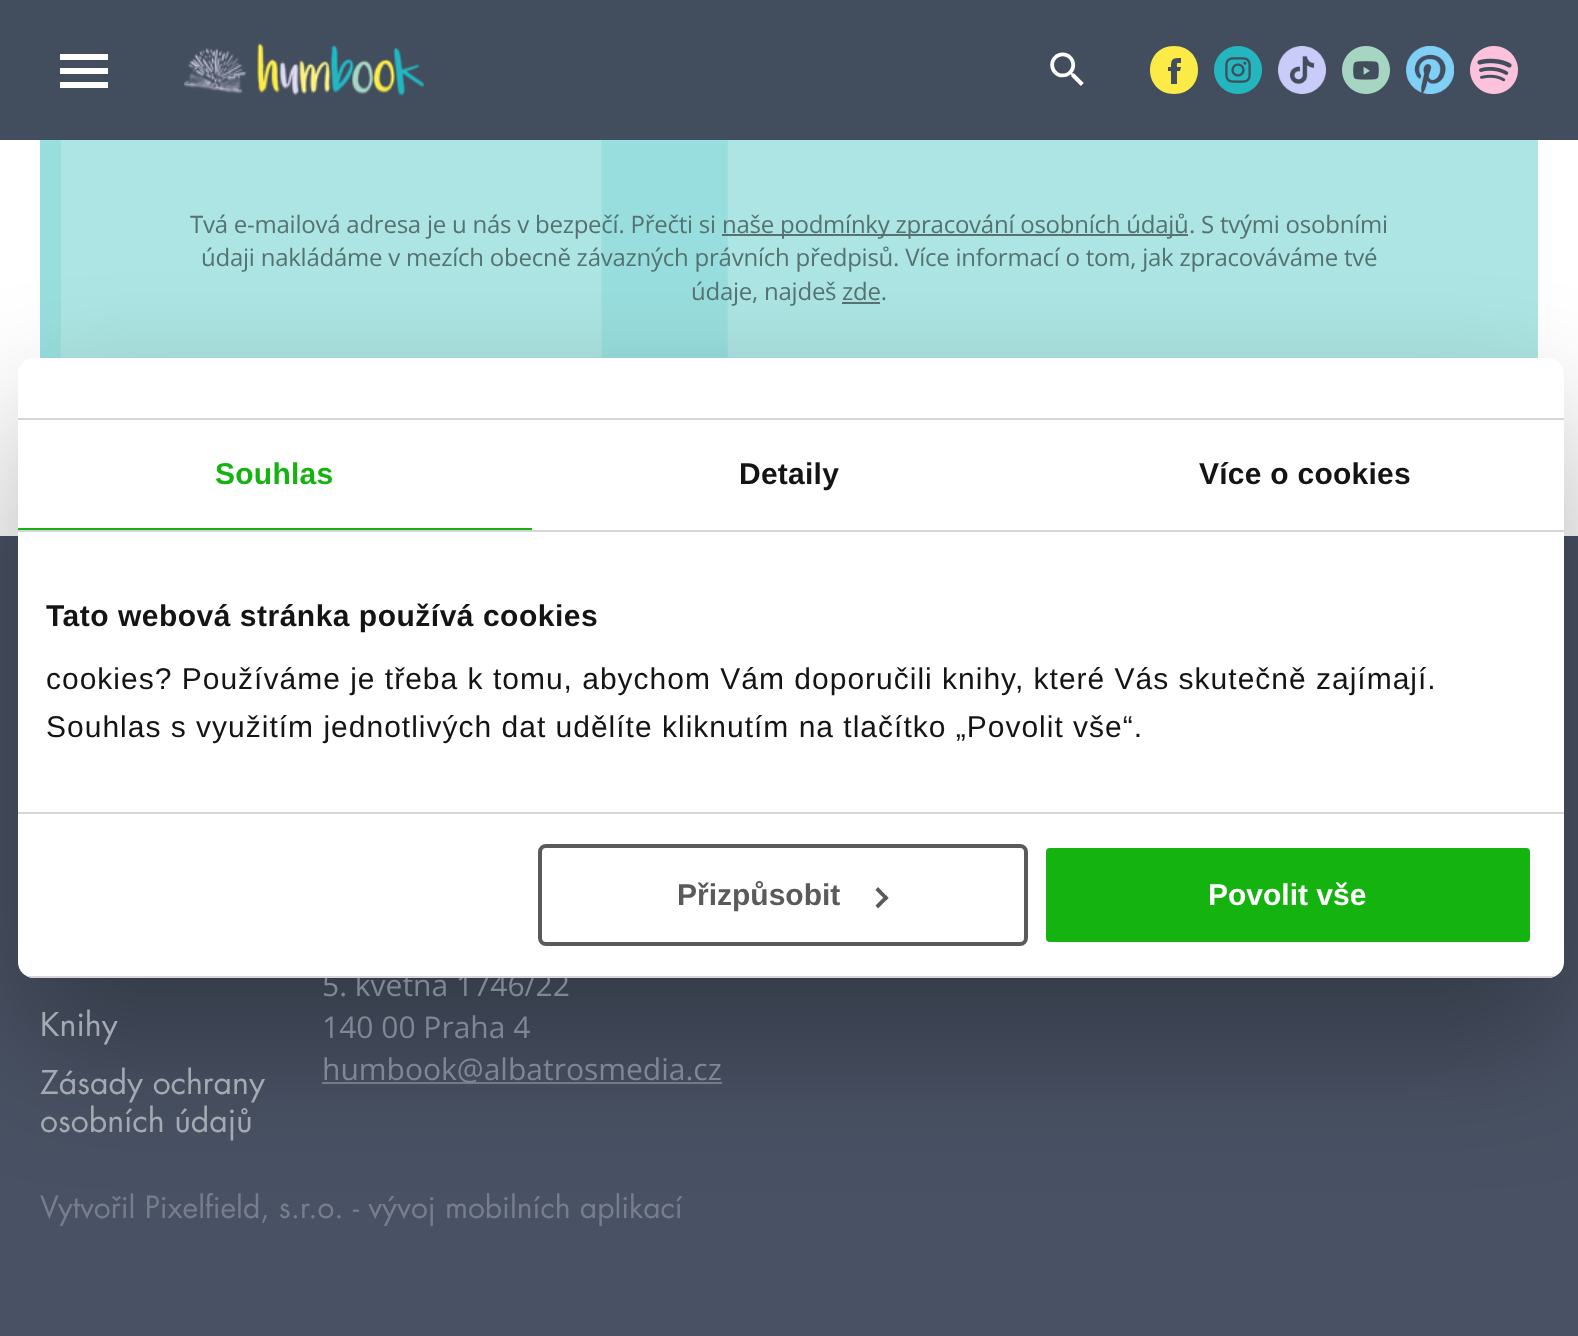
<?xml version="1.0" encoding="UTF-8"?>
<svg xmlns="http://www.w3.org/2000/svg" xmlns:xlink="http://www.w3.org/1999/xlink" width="1578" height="1336">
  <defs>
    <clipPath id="clip1"><rect x="18" y="358" width="1546" height="620" rx="16" /></clipPath>
  </defs>
  <rect width="100%" height="100%" fill="#ffffff" />
  <rect width="1578" height="140" fill="#424d5e" />
  <image x="184" y="42" width="240" height="54" xlink:href="image1.png" />
  <image x="1050" y="52" width="34" height="34" xlink:href="image2.png" />
  <path d="M 1174 46 c -32 0 -32 48 0 48 c 32 0 32 -48 0 -48 z m 3 25 v 13 h -6 v -13 h -3 v -4 h 3 c 0 -9 2 -9 10 -9 v 5 c -5 0 -4 -1 -4 4 h 4 l -1 4 z" fill="#fceb47" fill-rule="evenodd" />
  <image x="1214" y="46" width="48" height="48" xlink:href="image3.png" />
  <image x="1278" y="46" width="48" height="48" xlink:href="image4.png" />
  <image x="1342" y="46" width="48" height="48" xlink:href="image5.png" />
  <image x="1406" y="46" width="48" height="48" xlink:href="image6.png" />
  <image x="1470" y="46" width="48" height="48" xlink:href="image7.png" />
  <rect x="60" y="68" width="48" height="6" fill="#ffffff" />
  <rect x="60" y="54" width="48" height="6" fill="#ffffff" />
  <rect x="60" y="82" width="48" height="6" fill="#ffffff" />
  <rect x="40" y="140" width="1498" height="218" fill="#ace5e3" />
  <image x="40" y="140" width="688" height="218" xlink:href="image8.png" />
  <rect x="722" y="234" width="466" height="2" fill="#000000" fill-opacity="0.5" />
  <rect x="842" y="302" width="38" height="2" fill="#567372" />
  <rect y="536" width="1578" height="800" fill="#495264" />
  <rect x="322" y="1082" width="400" height="2" fill="#808693" />
  <rect x="18" y="422" width="1546" height="620" rx="16" fill="#000000" fill-opacity="0.3" filter="blur(68px)" />
  <text x="190" y="233" style="font-family: Open Sans; font-size: 24px; letter-spacing: -0.24px; fill: #547271">Tvá e-mailová adresa je u nás v bezpečí. Přečti si</text>
  <text x="722" y="233" style="font-family: Open Sans; font-size: 24px; letter-spacing: -0.24px; fill: #547271">naše podmínky zpracování osobních údajů</text>
  <text x="1189" y="233" style="font-family: Open Sans; font-size: 24px; letter-spacing: -0.24px; fill: #547271">. S tvými osobními</text>
  <text x="201" y="266" style="font-family: Open Sans; font-size: 24px; letter-spacing: -0.24px; fill: #547271">údaji nakládáme v mezích obecně závazných právních předpisů. Více informací o tom, jak zpracováváme tvé</text>
  <text x="691" y="300" style="font-family: Open Sans; font-size: 24px; letter-spacing: -0.24px; fill: #547271">údaje, najdeš</text>
  <text x="842" y="300" style="font-family: Open Sans; font-size: 24px; letter-spacing: -0.24px; fill: #547271">zde.</text>
  <text x="40" y="1036" style="font-family: Futura; font-size: 32px; fill: #a4a9b2">Knihy</text>
  <text x="40" y="1094" style="font-family: Futura; font-size: 32px; fill: #a4a9b2">Zásady ochrany</text>
  <text x="40" y="1132" style="font-family: Futura; font-size: 32px; fill: #a4a9b2">osobních údajů</text>
  <text x="322" y="996" style="font-family: Open Sans; font-size: 30px; fill: #808693">5. května 1746/22</text>
  <text x="322" y="1038" style="font-family: Open Sans; font-size: 30px; fill: #808693">140 00 Praha 4</text>
  <text x="322" y="1080" style="font-family: Open Sans; font-size: 30px; fill: #808693">humbook@albatrosmedia.cz</text>
  <text x="40" y="1218" style="font-family: Futura; font-size: 30px; fill: #777d8b">Vytvořil Pixelfield, s.r.o. - vývoj mobilních aplikací</text>
  <rect x="18" y="358" width="1546" height="620" rx="16" fill="#ffffff" />
  <rect x="18" y="418" width="1546" height="2" fill="#d6d6d6" />
  <rect x="18" y="530" width="1546" height="2" fill="#d6d6d6" />
  <rect x="18" y="528" width="514" height="2" fill="#14b310" />
  <text x="215" y="484" style="font-family: Liberation Sans; font-size: 30px; font-weight: bold; letter-spacing: 0.25px; fill: #14b310">Souhlas</text>
  <text x="739" y="484" style="font-family: Liberation Sans; font-size: 30px; font-weight: bold; letter-spacing: 0.25px; fill: #141414">Detaily</text>
  <text x="1199" y="484" style="font-family: Liberation Sans; font-size: 30px; font-weight: bold; letter-spacing: 0.25px; fill: #141414">Více o cookies</text>
  <rect x="18" y="812" width="1546" height="2" fill="#d6d6d6" />
  <text x="46" y="626" style="font-family: Liberation Sans; font-size: 30px; font-weight: bold; letter-spacing: 0.5px; fill: #141414">Tato webová stránka používá cookies</text>
  <text x="46" y="689" style="font-family: Liberation Sans; font-size: 30px; letter-spacing: 1px; fill: #141414">cookies? Používáme je třeba k tomu, abychom Vám doporučili knihy, které Vás skutečně zajímají.</text>
  <text x="46" y="737" style="font-family: Liberation Sans; font-size: 30px; letter-spacing: 1px; fill: #141414">Souhlas s využitím jednotlivých dat udělíte kliknutím na tlačítko „Povolit vše“.</text>
  <g clip-path="url(#clip1)">
    <rect x="18" y="976" width="1546" height="2" fill="#d6d6d6" />
  </g>
  <rect x="540" y="846" width="486" height="98" rx="6" fill="none" stroke="#5b5a5a" stroke-width="4" />
  <text x="677" y="905" style="font-family: Liberation Sans; font-size: 30px; font-weight: bold; fill: #5b5a5a">Přizpůsobit</text>
  <path d="M 878 887 l 10.5 11 l -2.5 2.5 l -10.5 -10.5 z" fill="#5b5a5a" />
  <path d="M 886 895 l 2.5 3 l -10.5 10.5 l -2.5 -3 z" fill="#5b5a5a" />
  <rect x="1044" y="846" width="488" height="98" rx="6" fill="#14b310" stroke="#ffffff" stroke-width="4" />
  <text x="1208" y="905" style="font-family: Liberation Sans; font-size: 30px; font-weight: bold; fill: #ffffff">Povolit vše</text>
</svg>
